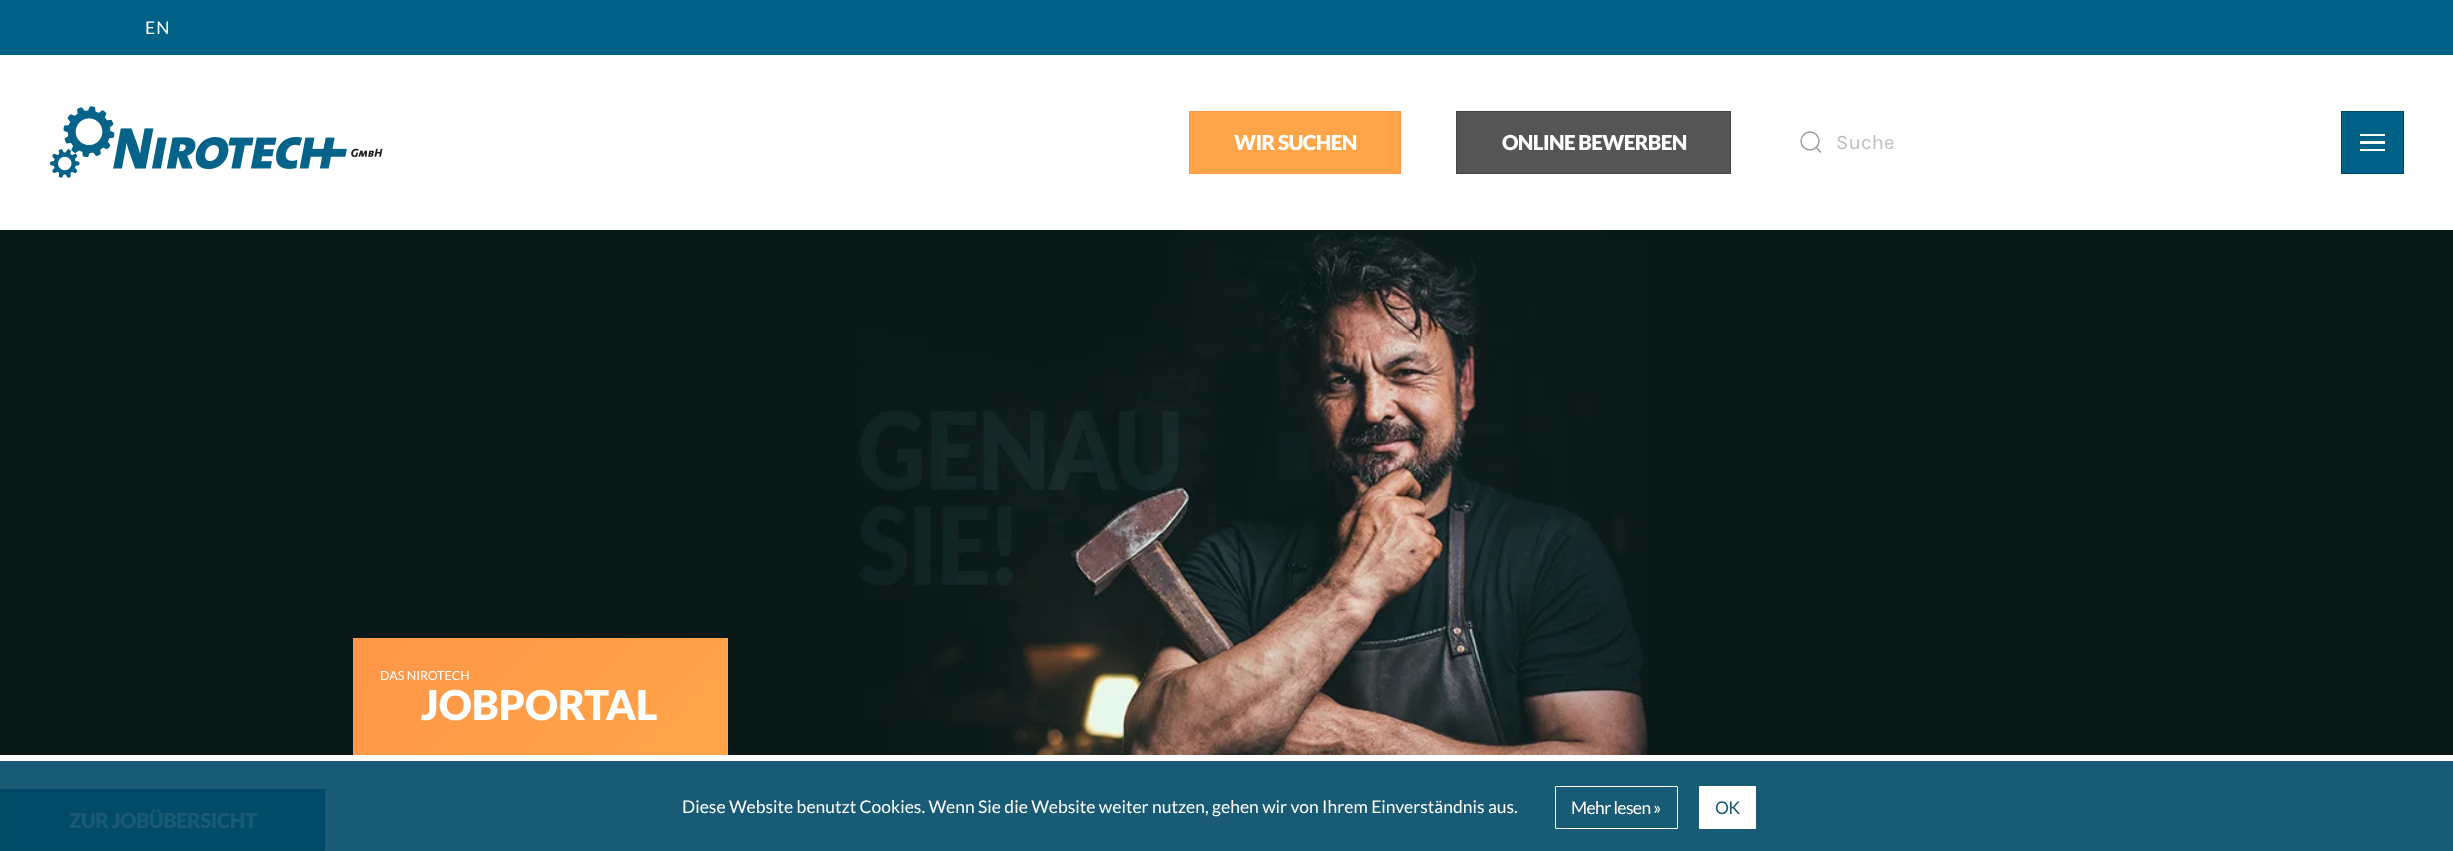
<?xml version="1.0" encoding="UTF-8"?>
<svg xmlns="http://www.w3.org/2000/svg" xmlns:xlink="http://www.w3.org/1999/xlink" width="2453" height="851">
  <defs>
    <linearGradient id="g1" gradientUnits="userSpaceOnUse" x1="417" y1="573" x2="663" y2="819"><stop offset="0" stop-color="#ff9648" /><stop offset="1" stop-color="#ffa548" /></linearGradient>
  </defs>
  <rect width="100%" height="100%" fill="#ffffff" />
  <rect y="761" width="2453" height="90" fill="#195b74" />
  <rect width="2453" height="55" fill="#006187" />
  <image x="50" y="106" width="333" height="72" xlink:href="image1.png" />
  <rect x="1189.5" y="111.5" width="211" height="62" fill="#ffa548" stroke="#ff9648" />
  <rect x="1456.5" y="111.5" width="274" height="62" fill="#555555" stroke="#444444" />
  <circle cx="1810" cy="141" r="9" fill="none" stroke="#999999" stroke-width="1.4" />
  <path d="M 1816 147.5 l 5 5 z" fill="none" stroke="#999999" stroke-width="1.4" />
  <rect x="2341.5" y="111.5" width="62" height="62" fill="#006187" stroke="#004965" />
  <rect x="2360" y="134" width="25" height="2" fill="#ffffff" />
  <rect x="2360" y="141" width="25" height="3" fill="#ffffff" />
  <rect x="2360" y="149" width="25" height="2" fill="#ffffff" />
  <rect y="230" width="2453" height="525" fill="#0a1818" />
  <image x="859" y="230" width="789" height="525" xlink:href="image2.png" />
  <rect x="353" y="638" width="375" height="117" fill="url(#g1)" />
  <rect x="0.5" y="789.5" width="324" height="61" fill="#004b68" stroke="#004965" />
  <rect x="1555.5" y="786.5" width="122" height="42" rx="0.5" fill="none" stroke="#ffffff" />
  <rect x="1699" y="786" width="57" height="43" rx="1" fill="#ffffff" />
  <text x="145" y="34" style="font-family: Lato; font-size: 17.5px; letter-spacing: 1px; fill: #ffffff">EN</text>
  <text x="1234" y="150" style="font-family: Lato; font-size: 20.6px; font-weight: 900; letter-spacing: -0.6px; fill: #ffffff">WIR SUCHEN</text>
  <text x="1502" y="150" style="font-family: Lato; font-size: 20.6px; font-weight: 900; letter-spacing: -0.6px; fill: #ffffff">ONLINE BEWERBEN</text>
  <text x="1836" y="149" style="font-family: Karla; font-size: 20.6px; fill: #bfbfbf">Suche</text>
  <text x="380" y="680" style="font-family: Lato; font-size: 12.5px; fill: #ffffff">DAS NIROTECH</text>
  <text x="421" y="720" style="font-family: Lato; font-size: 41.25px; font-weight: 900; fill: #ffffff">JOBPORTAL</text>
  <text x="69" y="828" style="font-family: Lato; font-size: 20.6px; font-weight: 900; letter-spacing: -0.6px; fill: #195b74">ZUR JOBÜBERSICHT</text>
  <text x="682" y="813" style="font-family: Lato; font-size: 17.5px; fill: #ffffff">Diese Website benutzt Cookies. Wenn Sie die Website weiter nutzen, gehen wir von Ihrem Einverständnis aus.</text>
  <text x="1571" y="814" style="font-family: Lato; font-size: 17.5px; letter-spacing: -0.6px; fill: #ffffff">Mehr lesen »</text>
  <text x="1715" y="814" style="font-family: Lato; font-size: 17.5px; letter-spacing: -0.6px; fill: #195b74">OK</text>
</svg>
